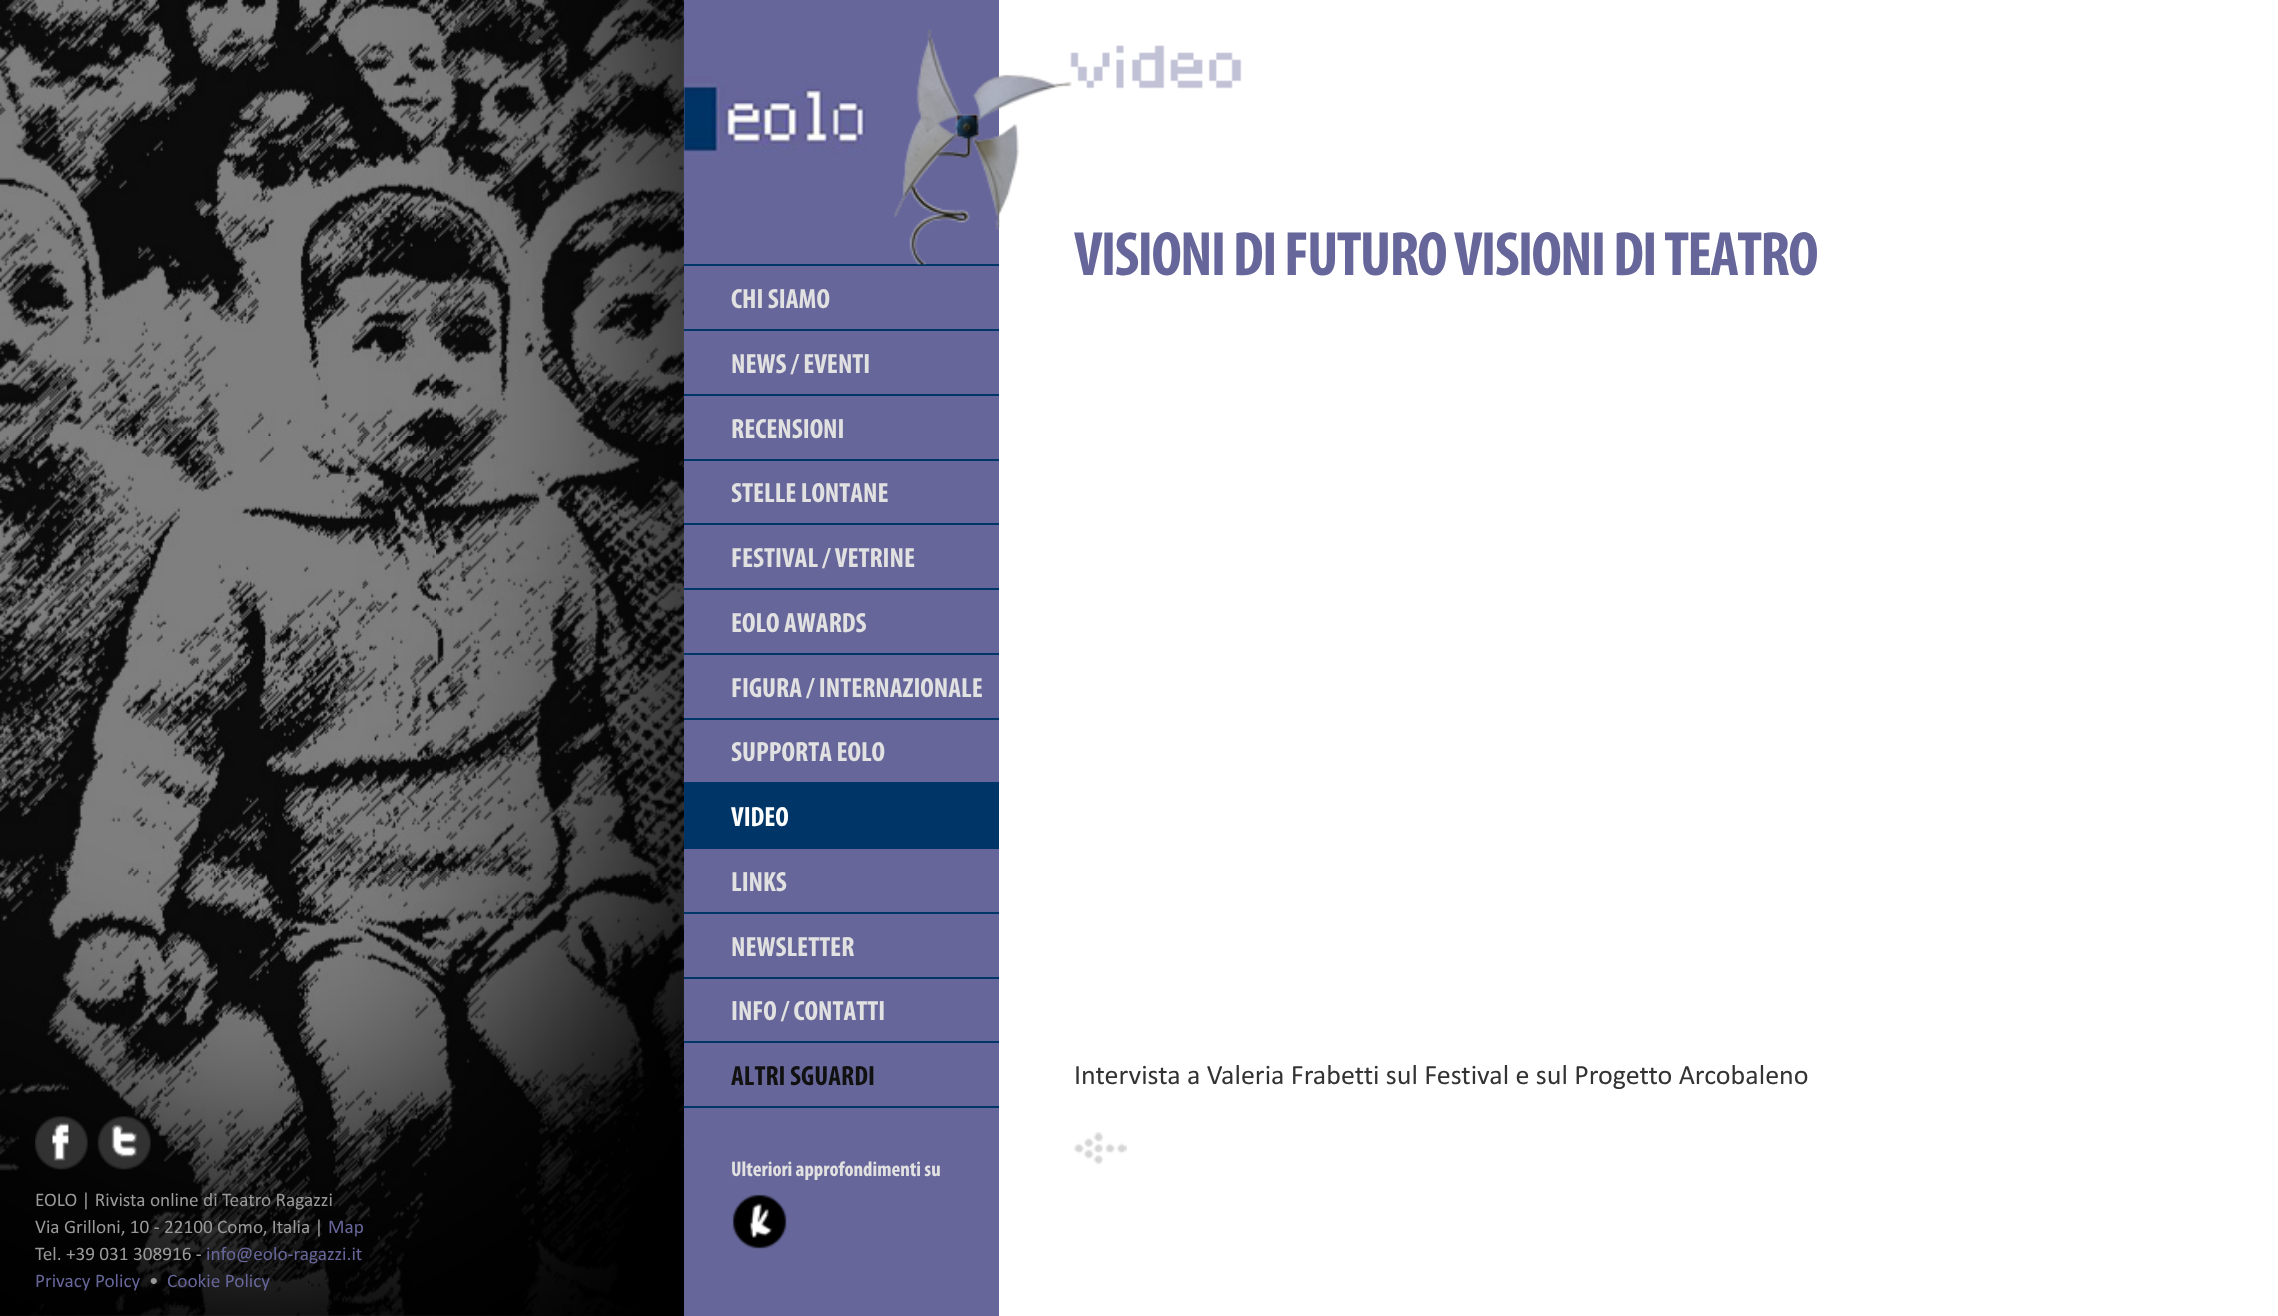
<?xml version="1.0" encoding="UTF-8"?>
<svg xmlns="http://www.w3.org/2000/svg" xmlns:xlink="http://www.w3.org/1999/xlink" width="2278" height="1316">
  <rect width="100%" height="100%" fill="#ffffff" />
  <image x="0" y="0" width="684" height="1316" xlink:href="image1.png" />
  <image x="0" y="0" width="684" height="1316" xlink:href="image2.png" />
  <rect x="684" width="315" height="1316" fill="#66669a" />
  <image x="683" y="0" width="183" height="262" xlink:href="image3.png" />
  <rect x="684" y="264" width="315" height="2" fill="#003667" />
  <image x="1070" y="45" width="172" height="44" xlink:href="image6.png" />
  <image x="894" y="29" width="178" height="236" xlink:href="image4.png" />
  <rect x="684" y="329" width="315" height="2" fill="#003667" />
  <rect x="684" y="394" width="315" height="2" fill="#003667" />
  <rect x="684" y="459" width="315" height="2" fill="#003667" />
  <rect x="684" y="523" width="315" height="2" fill="#003667" />
  <rect x="684" y="588" width="315" height="2" fill="#003667" />
  <rect x="684" y="653" width="315" height="2" fill="#003667" />
  <rect x="684" y="718" width="315" height="2" fill="#003667" />
  <rect x="684" y="782" width="315" height="67" fill="#003667" />
  <rect x="684" y="912" width="315" height="2" fill="#003667" />
  <rect x="684" y="977" width="315" height="2" fill="#003667" />
  <rect x="684" y="1041" width="315" height="2" fill="#003667" />
  <rect x="684" y="1106" width="315" height="2" fill="#003667" />
  <image x="732" y="1194" width="55" height="55" xlink:href="image5.png" />
  <image x="1074" y="1132" width="53" height="33" xlink:href="image7.png" />
  <image x="35" y="1116" width="53" height="54" xlink:href="image8.png" />
  <image x="97" y="1116" width="54" height="54" xlink:href="image9.png" />
  <text x="731" y="308" style="font-family: Myriad; font-size: 28px; font-weight: bold; fill: #e1e1e1">CHI SIAMO</text>
  <text x="731" y="373" style="font-family: Myriad; font-size: 28px; font-weight: bold; fill: #e1e1e1">NEWS / EVENTI</text>
  <text x="731" y="438" style="font-family: Myriad; font-size: 28px; font-weight: bold; fill: #e1e1e1">RECENSIONI</text>
  <text x="731" y="502" style="font-family: Myriad; font-size: 28px; font-weight: bold; fill: #e1e1e1">STELLE LONTANE</text>
  <text x="731" y="567" style="font-family: Myriad; font-size: 28px; font-weight: bold; fill: #e1e1e1">FESTIVAL / VETRINE</text>
  <text x="731" y="632" style="font-family: Myriad; font-size: 28px; font-weight: bold; fill: #e1e1e1">EOLO AWARDS</text>
  <text x="731" y="697" style="font-family: Myriad; font-size: 28px; font-weight: bold; fill: #e1e1e1">FIGURA / INTERNAZIONALE</text>
  <text x="731" y="761" style="font-family: Myriad; font-size: 28px; font-weight: bold; fill: #e1e1e1">SUPPORTA EOLO</text>
  <text x="731" y="826" style="font-family: Myriad; font-size: 28px; font-weight: bold; fill: #ffffff">VIDEO</text>
  <text x="731" y="891" style="font-family: Myriad; font-size: 28px; font-weight: bold; fill: #e1e1e1">LINKS</text>
  <text x="731" y="956" style="font-family: Myriad; font-size: 28px; font-weight: bold; fill: #e1e1e1">NEWSLETTER</text>
  <text x="731" y="1020" style="font-family: Myriad; font-size: 28px; font-weight: bold; fill: #e1e1e1">INFO / CONTATTI</text>
  <text x="731" y="1085" style="font-family: Myriad; font-size: 28px; font-weight: bold; fill: #111111">ALTRI SGUARDI</text>
  <text x="731" y="1176" style="font-family: Myriad; font-size: 21px; font-weight: bold; fill: #e1e1e1">Ulteriori approfondimenti su</text>
  <text x="1074" y="275" style="font-family: Myriad; font-size: 63px; font-weight: bold; letter-spacing: -1.75px; fill: #66669a">VISIONI DI FUTURO VISIONI DI TEATRO</text>
  <text x="1074" y="1084" style="font-family: Calibri; font-size: 28px; fill: #333333">Intervista a Valeria Frabetti sul Festival e sul Progetto Arcobaleno</text>
  <text x="35" y="1206" style="font-family: Calibri; font-size: 19.25px; fill: #999999">EOLO | Rivista online di Teatro Ragazzi</text>
  <text x="35" y="1233" style="font-family: Calibri; font-size: 19.25px; fill: #999999">Via Grilloni, 10 - 22100 Como, Italia |</text>
  <text x="328" y="1233" style="font-family: Calibri; font-size: 19.25px; fill: #66669a">Map</text>
  <text x="35" y="1260" style="font-family: Calibri; font-size: 19.25px; fill: #999999">Tel. +39 031 308916 -</text>
  <text x="206" y="1260" style="font-family: Calibri; font-size: 19.25px; fill: #66669a">info@eolo-ragazzi.it</text>
  <text x="35" y="1287" style="font-family: Calibri; font-size: 19.25px; fill: #66669a">Privacy Policy</text>
  <text x="149" y="1287" style="font-family: Calibri; font-size: 19.25px; fill: #999999">•</text>
  <text x="167" y="1287" style="font-family: Calibri; font-size: 19.25px; fill: #66669a">Cookie Policy</text>
</svg>
